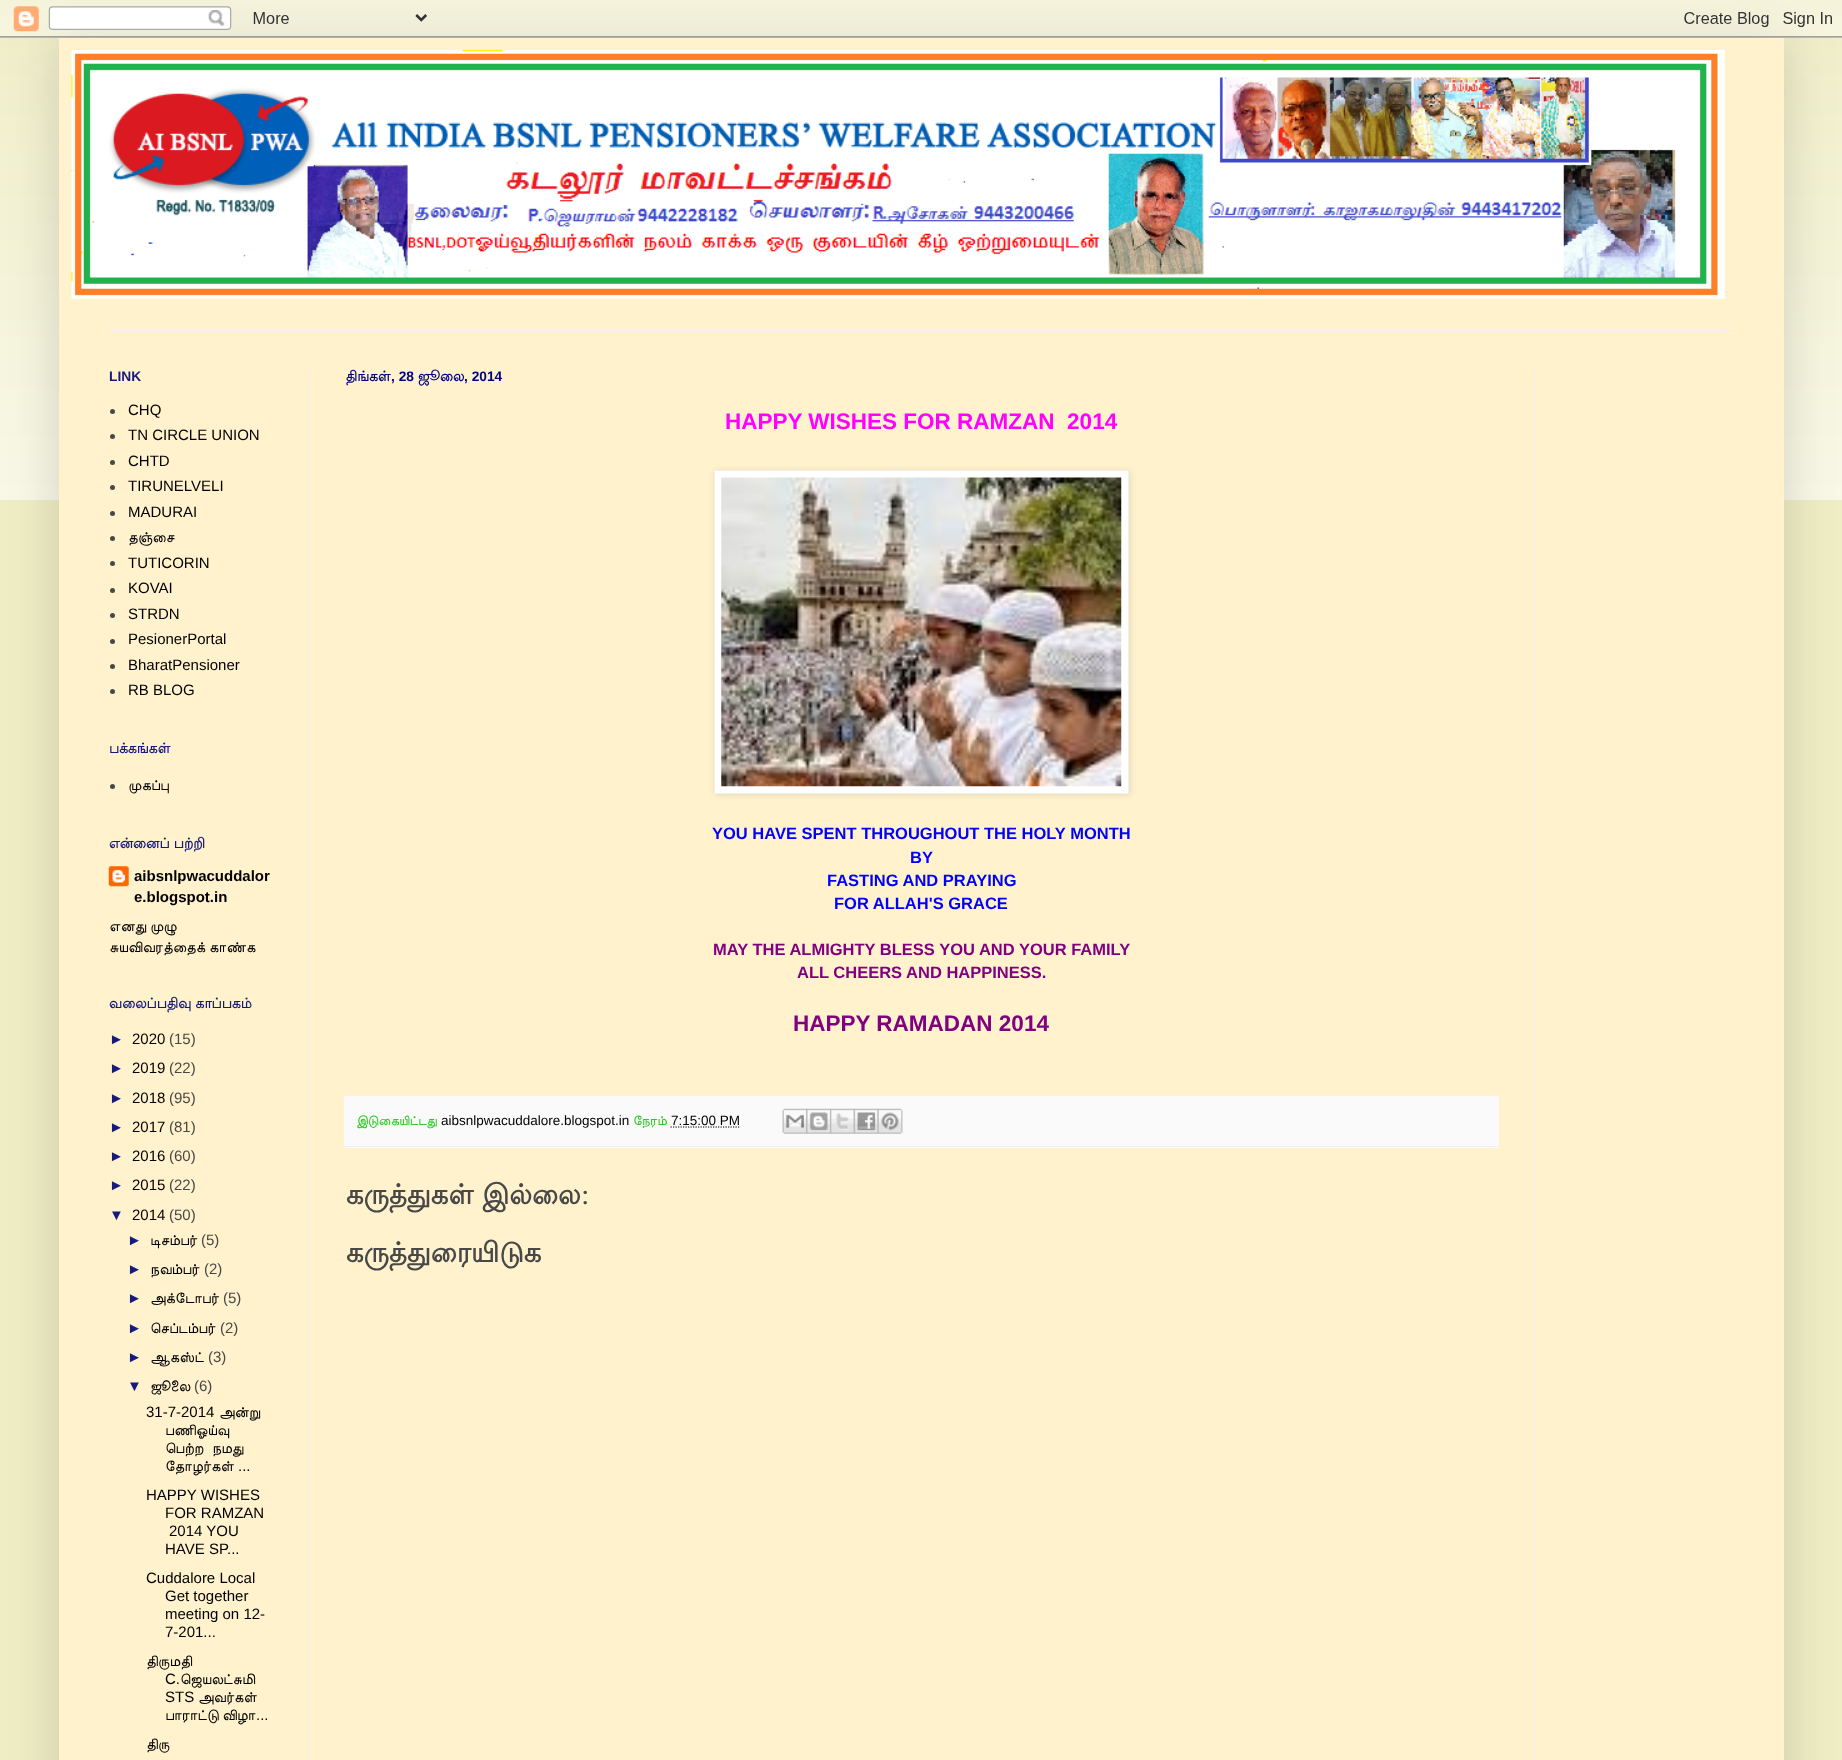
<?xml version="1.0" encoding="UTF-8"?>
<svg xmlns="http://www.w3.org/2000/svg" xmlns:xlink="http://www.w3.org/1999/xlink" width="1842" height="1760">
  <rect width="100%" height="100%" fill="#efedc4" />
  <image x="0" y="16" width="1842" height="484" xlink:href="image2.png" />
  <rect x="59" y="38" width="1725" height="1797" fill="#000000" fill-opacity="0.15" filter="blur(25px)" />
  <image x="0" y="0" width="1842" height="38" xlink:href="image1.png" />
  <rect x="59" y="38" width="1725" height="1722" fill="#fff2cc" />
  <image x="71" y="50" width="1654" height="249" xlink:href="image3.png" />
  <rect x="109" y="330" width="1625" height="1" fill="#efefef" />
  <circle cx="112.5" cy="411.5" r="2.5" fill="#484848" />
  <circle cx="112.5" cy="436.5" r="2.5" fill="#484848" />
  <circle cx="112.5" cy="462.5" r="2.5" fill="#484848" />
  <circle cx="112.5" cy="487.5" r="2.5" fill="#484848" />
  <circle cx="112.5" cy="513.5" r="2.5" fill="#484848" />
  <circle cx="112.5" cy="538.5" r="2.5" fill="#484848" />
  <circle cx="112.5" cy="563.5" r="2.5" fill="#484848" />
  <circle cx="112.5" cy="590.5" r="2.5" fill="#484848" />
  <circle cx="112.5" cy="615.5" r="2.5" fill="#484848" />
  <circle cx="112.5" cy="641.5" r="2.5" fill="#484848" />
  <circle cx="112.5" cy="666.5" r="2.5" fill="#484848" />
  <circle cx="112.5" cy="691.5" r="2.5" fill="#484848" />
  <circle cx="112.5" cy="786.5" r="2.5" fill="#484848" />
  <image x="108" y="866" width="21" height="21" xlink:href="image4.png" />
  <rect x="715" y="471" width="415" height="324" fill="#000000" fill-opacity="0.1" filter="blur(3px)" />
  <rect x="714.5" y="470.5" width="414" height="323" fill="#ffffff" stroke="#efefef" />
  <image x="721" y="477" width="401" height="310" xlink:href="image5.png" />
  <rect x="344" y="1096" width="1155" height="52" fill="#fafafa" />
  <rect x="344" y="1146" width="1155" height="1" fill="#efefef" />
  <path d="M 670.5 1127 h 69" fill="none" stroke="#000000" stroke-width="1.2" stroke-dasharray="1.25 1.25" />
  <image x="782" y="1108" width="26" height="26" xlink:href="image6.png" />
  <image x="806" y="1108" width="26" height="26" xlink:href="image7.png" />
  <image x="830" y="1108" width="25" height="26" xlink:href="image8.png" />
  <image x="853" y="1108" width="26" height="26" xlink:href="image9.png" />
  <image x="877" y="1108" width="26" height="26" xlink:href="image10.png" />
  <rect x="308" y="369" width="1" height="1391" fill="#efefef" />
  <rect x="1534" y="369" width="1" height="1391" fill="#efefef" />
  <text x="109" y="381" style="font-family: Liberation Sans; font-size: 13.75px; font-weight: bold; fill: #161a7f">LINK</text>
  <text x="128" y="415" style="font-family: Liberation Sans; font-size: 15px; fill: #000000">CHQ</text>
  <text x="128" y="440" style="font-family: Liberation Sans; font-size: 15px; fill: #000000">TN CIRCLE UNION</text>
  <text x="128" y="466" style="font-family: Liberation Sans; font-size: 15px; fill: #000000">CHTD</text>
  <text x="128" y="491" style="font-family: Liberation Sans; font-size: 15px; fill: #000000">TIRUNELVELI</text>
  <text x="128" y="517" style="font-family: Liberation Sans; font-size: 15px; fill: #000000">MADURAI</text>
  <text x="128" y="542" style="font-family: FreeSans; font-size: 15px; fill: #000000">தஞ்சை</text>
  <text x="128" y="568" style="font-family: Liberation Sans; font-size: 15px; fill: #000000">TUTICORIN</text>
  <text x="128" y="593" style="font-family: Liberation Sans; font-size: 15px; fill: #000000">KOVAI</text>
  <text x="128" y="619" style="font-family: Liberation Sans; font-size: 15px; fill: #000000">STRDN</text>
  <text x="128" y="644" style="font-family: Liberation Sans; font-size: 15px; fill: #000000">PesionerPortal</text>
  <text x="128" y="670" style="font-family: Liberation Sans; font-size: 15px; fill: #000000">BharatPensioner</text>
  <text x="128" y="695" style="font-family: Liberation Sans; font-size: 15px; fill: #000000">RB BLOG</text>
  <text x="109" y="753" style="font-family: Lohit Tamil; font-size: 13.75px; font-weight: bold; fill: #161a7f">பக்கங்கள்</text>
  <text x="128" y="790" style="font-family: FreeSans; font-size: 15px; fill: #000000">முகப்பு</text>
  <text x="109" y="848" style="font-family: Lohit Tamil; font-size: 13.75px; font-weight: bold; fill: #161a7f">என்னைப் பற்றி</text>
  <text x="134" y="881" style="font-family: Liberation Sans; font-size: 15px; font-weight: bold; fill: #000000">aibsnlpwacuddalor</text>
  <text x="134" y="902" style="font-family: Liberation Sans; font-size: 15px; font-weight: bold; fill: #000000">e.blogspot.in</text>
  <text x="109" y="931" style="font-family: FreeSans; font-size: 15px; fill: #000000">எனது முழு</text>
  <text x="109" y="952" style="font-family: FreeSans; font-size: 15px; fill: #000000">சுயவிவரத்தைக் காண்க</text>
  <text x="109" y="1008" style="font-family: Lohit Tamil; font-size: 13.75px; font-weight: bold; fill: #161a7f">வலைப்பதிவு காப்பகம்</text>
  <text x="109" y="1044" style="font-family: Liberation Sans; font-size: 15px; fill: #161a7f">►</text>
  <text x="132" y="1044" style="font-family: Liberation Sans; font-size: 15px; fill: #000000">2020</text>
  <text x="169" y="1044" style="font-family: Liberation Sans; font-size: 15px; fill: #484848">(15)</text>
  <text x="109" y="1073" style="font-family: Liberation Sans; font-size: 15px; fill: #161a7f">►</text>
  <text x="132" y="1073" style="font-family: Liberation Sans; font-size: 15px; fill: #000000">2019</text>
  <text x="169" y="1073" style="font-family: Liberation Sans; font-size: 15px; fill: #484848">(22)</text>
  <text x="109" y="1103" style="font-family: Liberation Sans; font-size: 15px; fill: #161a7f">►</text>
  <text x="132" y="1103" style="font-family: Liberation Sans; font-size: 15px; fill: #000000">2018</text>
  <text x="169" y="1103" style="font-family: Liberation Sans; font-size: 15px; fill: #484848">(95)</text>
  <text x="109" y="1132" style="font-family: Liberation Sans; font-size: 15px; fill: #161a7f">►</text>
  <text x="132" y="1132" style="font-family: Liberation Sans; font-size: 15px; fill: #000000">2017</text>
  <text x="169" y="1132" style="font-family: Liberation Sans; font-size: 15px; fill: #484848">(81)</text>
  <text x="109" y="1161" style="font-family: Liberation Sans; font-size: 15px; fill: #161a7f">►</text>
  <text x="132" y="1161" style="font-family: Liberation Sans; font-size: 15px; fill: #000000">2016</text>
  <text x="169" y="1161" style="font-family: Liberation Sans; font-size: 15px; fill: #484848">(60)</text>
  <text x="109" y="1190" style="font-family: Liberation Sans; font-size: 15px; fill: #161a7f">►</text>
  <text x="132" y="1190" style="font-family: Liberation Sans; font-size: 15px; fill: #000000">2015</text>
  <text x="169" y="1190" style="font-family: Liberation Sans; font-size: 15px; fill: #484848">(22)</text>
  <text x="109" y="1220" style="font-family: Liberation Sans; font-size: 15px; fill: #161a7f">▼</text>
  <text x="132" y="1220" style="font-family: Liberation Sans; font-size: 15px; fill: #000000">2014</text>
  <text x="169" y="1220" style="font-family: Liberation Sans; font-size: 15px; fill: #484848">(50)</text>
  <text x="127" y="1245" style="font-family: Liberation Sans; font-size: 15px; fill: #161a7f">►</text>
  <text x="150" y="1245" style="font-family: FreeSans; font-size: 15px; fill: #000000">டிசம்பர்</text>
  <text x="201" y="1245" style="font-family: Liberation Sans; font-size: 15px; fill: #484848">(5)</text>
  <text x="127" y="1274" style="font-family: Liberation Sans; font-size: 15px; fill: #161a7f">►</text>
  <text x="150" y="1274" style="font-family: FreeSans; font-size: 15px; fill: #000000">நவம்பர்</text>
  <text x="204" y="1274" style="font-family: Liberation Sans; font-size: 15px; fill: #484848">(2)</text>
  <text x="127" y="1303" style="font-family: Liberation Sans; font-size: 15px; fill: #161a7f">►</text>
  <text x="150" y="1303" style="font-family: FreeSans; font-size: 15px; fill: #000000">அக்டோபர்</text>
  <text x="223" y="1303" style="font-family: Liberation Sans; font-size: 15px; fill: #484848">(5)</text>
  <text x="127" y="1333" style="font-family: Liberation Sans; font-size: 15px; fill: #161a7f">►</text>
  <text x="150" y="1333" style="font-family: FreeSans; font-size: 15px; fill: #000000">செப்டம்பர்</text>
  <text x="220" y="1333" style="font-family: Liberation Sans; font-size: 15px; fill: #484848">(2)</text>
  <text x="127" y="1362" style="font-family: Liberation Sans; font-size: 15px; fill: #161a7f">►</text>
  <text x="150" y="1362" style="font-family: FreeSans; font-size: 15px; fill: #000000">ஆகஸ்ட்</text>
  <text x="208" y="1362" style="font-family: Liberation Sans; font-size: 15px; fill: #484848">(3)</text>
  <text x="127" y="1391" style="font-family: Liberation Sans; font-size: 15px; fill: #161a7f">▼</text>
  <text x="150" y="1391" style="font-family: FreeSans; font-size: 15px; fill: #000000">ஜூலை</text>
  <text x="194" y="1391" style="font-family: Liberation Sans; font-size: 15px; fill: #484848">(6)</text>
  <text x="146" y="1417" style="font-family: Liberation Sans; font-size: 15px; fill: #000000">31-7-2014</text>
  <text x="219" y="1417" style="font-family: FreeSans; font-size: 15px; fill: #000000">அன்று</text>
  <text x="165" y="1435" style="font-family: FreeSans; font-size: 15px; fill: #000000">பணிஓய்வு</text>
  <text x="165" y="1453" style="font-family: FreeSans; font-size: 15px; fill: #000000">பெற்ற</text>
  <text x="212" y="1453" style="font-family: FreeSans; font-size: 15px; fill: #000000">நமது</text>
  <text x="165" y="1471" style="font-family: FreeSans; font-size: 15px; fill: #000000">தோழர்கள்</text>
  <text x="238" y="1471" style="font-family: Liberation Sans; font-size: 15px; fill: #000000">...</text>
  <text x="146" y="1500" style="font-family: Liberation Sans; font-size: 15px; fill: #000000">HAPPY WISHES</text>
  <text x="165" y="1518" style="font-family: Liberation Sans; font-size: 15px; fill: #000000">FOR RAMZAN</text>
  <text x="169" y="1536" style="font-family: Liberation Sans; font-size: 15px; fill: #000000">2014 YOU</text>
  <text x="165" y="1554" style="font-family: Liberation Sans; font-size: 15px; fill: #000000">HAVE SP...</text>
  <text x="146" y="1583" style="font-family: Liberation Sans; font-size: 15px; fill: #000000">Cuddalore Local</text>
  <text x="165" y="1601" style="font-family: Liberation Sans; font-size: 15px; fill: #000000">Get together</text>
  <text x="165" y="1619" style="font-family: Liberation Sans; font-size: 15px; fill: #000000">meeting on 12-</text>
  <text x="165" y="1637" style="font-family: Liberation Sans; font-size: 15px; fill: #000000">7-201...</text>
  <text x="146" y="1666" style="font-family: FreeSans; font-size: 15px; fill: #000000">திருமதி</text>
  <text x="165" y="1684" style="font-family: Liberation Sans; font-size: 15px; fill: #000000">C.</text>
  <text x="180" y="1684" style="font-family: FreeSans; font-size: 15px; fill: #000000">ஜெயலட்சுமி</text>
  <text x="165" y="1702" style="font-family: Liberation Sans; font-size: 15px; fill: #000000">STS</text>
  <text x="198" y="1702" style="font-family: FreeSans; font-size: 15px; fill: #000000">அவர்கள்</text>
  <text x="165" y="1720" style="font-family: FreeSans; font-size: 15px; fill: #000000">பாராட்டு விழா</text>
  <text x="256" y="1720" style="font-family: Liberation Sans; font-size: 15px; fill: #000000">...</text>
  <text x="146" y="1749" style="font-family: FreeSans; font-size: 15px; fill: #000000">திரு</text>
  <text x="346" y="381" style="font-family: Lohit Tamil; font-size: 13.75px; font-weight: bold; fill: #00047f">திங்கள்</text>
  <text x="391" y="381" style="font-family: Liberation Sans; font-size: 13.75px; font-weight: bold; fill: #00047f">, 28</text>
  <text x="418" y="381" style="font-family: Lohit Tamil; font-size: 13.75px; font-weight: bold; fill: #00047f">ஜூலை</text>
  <text x="464" y="381" style="font-family: Liberation Sans; font-size: 13.75px; font-weight: bold; fill: #00047f">, 2014</text>
  <text x="725" y="429" style="font-family: Liberation Sans; font-size: 22.5px; font-weight: bold; fill: #ff00ff" xml:space="preserve">HAPPY WISHES FOR RAMZAN  2014</text>
  <text x="712" y="839" style="font-family: Liberation Sans; font-size: 16.5px; font-weight: bold; fill: #0000ff">YOU HAVE SPENT THROUGHOUT THE HOLY MONTH</text>
  <text x="910" y="863" style="font-family: Liberation Sans; font-size: 16.5px; font-weight: bold; fill: #0000ff">BY</text>
  <text x="827" y="886" style="font-family: Liberation Sans; font-size: 16.5px; font-weight: bold; fill: #0000ff">FASTING AND PRAYING</text>
  <text x="834" y="909" style="font-family: Liberation Sans; font-size: 16.5px; font-weight: bold; fill: #0000ff">FOR ALLAH'S GRACE</text>
  <text x="713" y="955" style="font-family: Liberation Sans; font-size: 16.5px; font-weight: bold; fill: #800080">MAY THE ALMIGHTY BLESS YOU AND YOUR FAMILY</text>
  <text x="797" y="978" style="font-family: Liberation Sans; font-size: 16.5px; font-weight: bold; fill: #800080">ALL CHEERS AND HAPPINESS.</text>
  <text x="793" y="1031" style="font-family: Liberation Sans; font-size: 22.5px; font-weight: bold; fill: #800080">HAPPY RAMADAN 2014</text>
  <text x="356" y="1125" style="font-family: FreeSans; font-size: 13.5px; fill: #2ac923">இடுகையிட்டது</text>
  <text x="441" y="1125" style="font-family: Liberation Sans; font-size: 13.5px; fill: #000000">aibsnlpwacuddalore.blogspot.in</text>
  <text x="633" y="1125" style="font-family: FreeSans; font-size: 13.5px; fill: #2ac923">நேரம்</text>
  <text x="671" y="1125" style="font-family: Liberation Sans; font-size: 13.5px; fill: #000000">7:15:00 PM</text>
  <text x="346" y="1204" word-spacing="1" style="font-family: Lohit Tamil; font-size: 27.5px; font-weight: bold; fill: #484848">கருத்துகள் இல்லை:</text>
  <text x="346" y="1262" style="font-family: Lohit Tamil; font-size: 27.5px; font-weight: bold; fill: #484848">கருத்துரையிடுக</text>
</svg>
